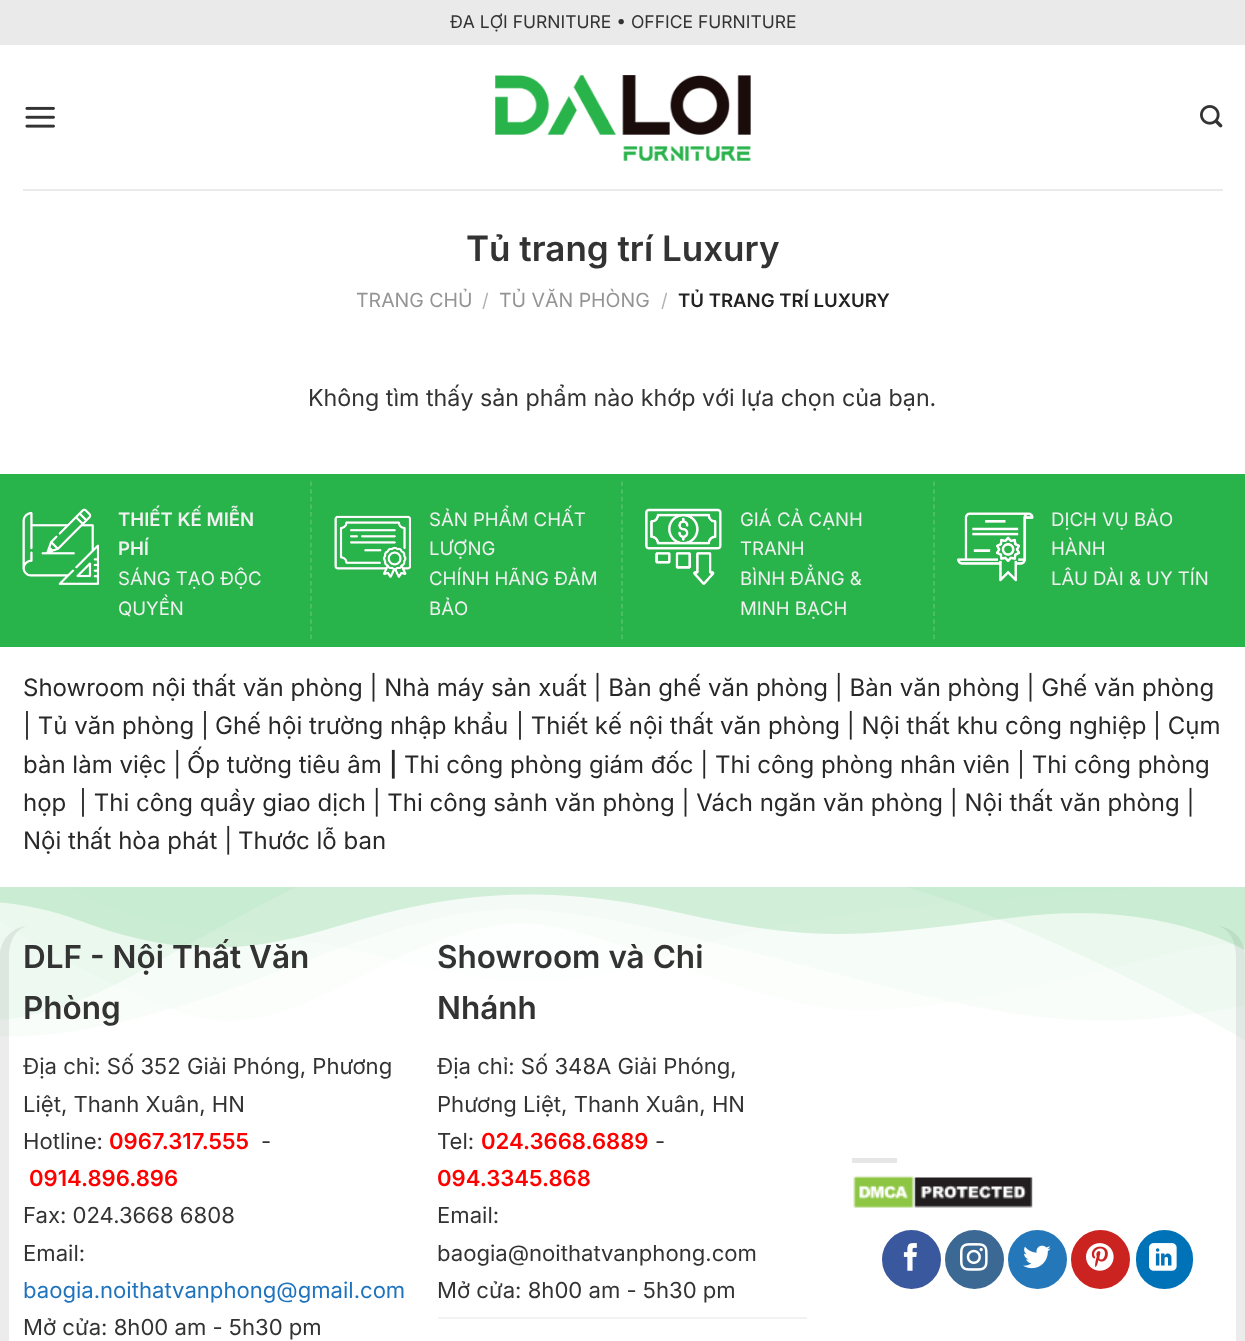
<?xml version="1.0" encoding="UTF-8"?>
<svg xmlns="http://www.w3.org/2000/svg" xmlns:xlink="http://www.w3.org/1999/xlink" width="1245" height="1341">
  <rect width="100%" height="100%" fill="#ffffff" />
  <rect width="1245" height="45" fill="#eaeaea" />
  <image x="25" y="106" width="30" height="22" xlink:href="image1.png" />
  <image x="495" y="75" width="256" height="86" xlink:href="image2.png" />
  <image x="1200" y="105" width="23" height="23" xlink:href="image3.png" />
  <rect x="23" y="189" width="1200" height="2" fill="#ebebeb" />
  <rect y="474" width="1245" height="173" fill="#29b34b" />
  <image x="22" y="508" width="77" height="77" xlink:href="image4.png" />
  <path d="M 311 481.5 v 157.5" fill="none" stroke="#54c26f" stroke-width="1.5" stroke-dasharray="4.5 3.15" />
  <image x="334" y="515" width="77" height="63" xlink:href="image5.png" />
  <path d="M 622 481.5 v 157.5" fill="none" stroke="#54c26f" stroke-width="1.5" stroke-dasharray="4.5 3.15" />
  <image x="645" y="508" width="77" height="77" xlink:href="image6.png" />
  <path d="M 934 481.5 v 157.5" fill="none" stroke="#54c26f" stroke-width="1.5" stroke-dasharray="4.5 3.15" />
  <image x="957" y="512" width="77" height="70" xlink:href="image7.png" />
  <path d="M 30 926 h 1185 c 17 0 30 13 30 30 v 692 c 0 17 -13 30 -30 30 h -1185 c -17 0 -30 -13 -30 -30 v -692 c 0 -17 13 -30 30 -30 z m 0 0 h 1185 c 12 0 21 13 21 30 v 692 h -1227 v -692 c 0 -17 9 -30 21 -30 z" fill="#ececec" fill-rule="evenodd" />
  <image x="0" y="887" width="1245" height="153" xlink:href="image8.png" />
  <rect x="438" y="1317" width="369" height="2" fill="#f2f2f2" />
  <rect x="852" y="1158" width="45" height="5" fill="#e6e6e6" />
  <image x="853" y="1175" width="180" height="33" xlink:href="image9.png" />
  <circle cx="911.5" cy="1259.5" r="28.5" fill="#3a589d" stroke="#3a589d" stroke-width="2" />
  <image x="903" y="1243" width="14" height="28" xlink:href="image10.png" />
  <circle cx="974.5" cy="1259.5" r="28.5" fill="#3b6994" stroke="#3b6994" stroke-width="2" />
  <image x="960" y="1243" width="28" height="28" xlink:href="image11.png" />
  <circle cx="1037.5" cy="1259.5" r="28.5" fill="#2478ba" stroke="#2478ba" stroke-width="2" />
  <image x="1023" y="1245" width="28" height="24" xlink:href="image12.png" />
  <circle cx="1100.5" cy="1259.5" r="28.5" fill="#cb2320" stroke="#cb2320" stroke-width="2" />
  <image x="1086" y="1243" width="28" height="28" xlink:href="image13.png" />
  <rect x="1137" y="1231" width="55" height="57" rx="27.5" fill="#0072b7" stroke="#0072b7" stroke-width="2" />
  <image x="1149" y="1243" width="28" height="28" xlink:href="image14.png" />
  <text x="450" y="28" style="font-family: Inter; font-size: 17.5px; fill: #333333">ĐA LỢI FURNITURE • OFFICE FURNITURE</text>
  <text x="466" y="261" style="font-family: Inter; font-size: 35px; font-weight: 600; fill: #333333">Tủ trang trí Luxury</text>
  <text x="356" y="307" style="font-family: Inter; font-size: 19.5px; fill: #949494">TRANG CHỦ</text>
  <text x="482" y="307" style="font-family: Inter; font-size: 18.6px; fill: #b2b2b2">/</text>
  <text x="499" y="307" style="font-family: Inter; font-size: 19.5px; fill: #949494">TỦ VĂN PHÒNG</text>
  <text x="661" y="307" style="font-family: Inter; font-size: 18.6px; fill: #b2b2b2">/</text>
  <text x="678" y="307" style="font-family: Inter; font-size: 18.6px; font-weight: 600; fill: #222222">TỦ TRANG TRÍ LUXURY</text>
  <text x="308" y="406" style="font-family: Inter; font-size: 23.25px; fill: #333333">Không tìm thấy sản phẩm nào khớp với lựa chọn của bạn.</text>
  <text x="118" y="526" style="font-family: Inter; font-size: 18.6px; font-weight: 600; fill: #f1f1f1">THIẾT KẾ MIỄN</text>
  <text x="118" y="555" style="font-family: Inter; font-size: 18.6px; font-weight: 600; fill: #f1f1f1">PHÍ</text>
  <text x="118" y="585" style="font-family: Inter; font-size: 18.6px; fill: #f1f1f1">SÁNG TẠO ĐỘC</text>
  <text x="118" y="615" style="font-family: Inter; font-size: 18.6px; fill: #f1f1f1">QUYỀN</text>
  <text x="429" y="526" style="font-family: Inter; font-size: 18.6px; fill: #f1f1f1">SẢN PHẨM CHẤT</text>
  <text x="429" y="555" style="font-family: Inter; font-size: 18.6px; fill: #f1f1f1">LƯỢNG</text>
  <text x="429" y="585" style="font-family: Inter; font-size: 18.6px; fill: #f1f1f1">CHÍNH HÃNG ĐẢM</text>
  <text x="429" y="615" style="font-family: Inter; font-size: 18.6px; fill: #f1f1f1">BẢO</text>
  <text x="740" y="526" style="font-family: Inter; font-size: 18.6px; fill: #f1f1f1">GIÁ CẢ CẠNH</text>
  <text x="740" y="555" style="font-family: Inter; font-size: 18.6px; fill: #f1f1f1">TRANH</text>
  <text x="740" y="585" style="font-family: Inter; font-size: 18.6px; fill: #f1f1f1">BÌNH ĐẲNG &amp;</text>
  <text x="740" y="615" style="font-family: Inter; font-size: 18.6px; fill: #f1f1f1">MINH BẠCH</text>
  <text x="1051" y="526" style="font-family: Inter; font-size: 18.6px; fill: #f1f1f1">DỊCH VỤ BẢO</text>
  <text x="1051" y="555" style="font-family: Inter; font-size: 18.6px; fill: #f1f1f1">HÀNH</text>
  <text x="1051" y="585" style="font-family: Inter; font-size: 18.6px; fill: #f1f1f1">LÂU DÀI &amp; UY TÍN</text>
  <text x="23" y="696" style="font-family: Inter; font-size: 24px; fill: #282828">Showroom nội thất văn phòng | Nhà máy sản xuất | Bàn ghế văn phòng | Bàn văn phòng | Ghế văn phòng</text>
  <text x="23" y="734" style="font-family: Inter; font-size: 24px; fill: #282828">| Tủ văn phòng |</text>
  <text x="215" y="734" style="font-family: Inter; font-size: 24px; fill: #282828">Ghế hội trường nhập khẩu</text>
  <text x="516" y="734" style="font-family: Inter; font-size: 24px; fill: #282828">| Thiết kế nội thất văn phòng | Nội thất khu công nghiệp | Cụm</text>
  <text x="23" y="773" style="font-family: Inter; font-size: 24px; fill: #282828">bàn làm việc |</text>
  <text x="187" y="773" style="font-family: Inter; font-size: 24px; fill: #282828">Ốp tường tiêu âm</text>
  <text x="389" y="773" style="font-family: Inter; font-size: 24px; font-weight: 600; fill: #282828">|</text>
  <text x="404" y="773" style="font-family: Inter; font-size: 24px; fill: #282828">Thi công phòng giám đốc | Thi công phòng nhân viên | Thi công phòng</text>
  <text x="23" y="811" style="font-family: Inter; font-size: 24px; fill: #282828">họp</text>
  <text x="79" y="811" style="font-family: Inter; font-size: 24px; fill: #282828">| Thi công quầy giao dịch | Thi công sảnh văn phòng | Vách ngăn văn phòng | Nội thất văn phòng |</text>
  <text x="23" y="849" style="font-family: Inter; font-size: 24px; fill: #282828">Nội thất hòa phát |</text>
  <text x="238" y="849" style="font-family: Inter; font-size: 24px; fill: #282828">Thước lỗ ban</text>
  <text x="23" y="968" style="font-family: Inter; font-size: 31.5px; font-weight: 600; fill: #333333">DLF - Nội Thất Văn</text>
  <text x="23" y="1019" style="font-family: Inter; font-size: 31.5px; font-weight: 600; fill: #333333">Phòng</text>
  <text x="23" y="1074" style="font-family: Inter; font-size: 22.1px; fill: #333333">Địa chỉ: Số 352 Giải Phóng, Phương</text>
  <text x="23" y="1112" style="font-family: Inter; font-size: 22.1px; fill: #333333">Liệt, Thanh Xuân, HN</text>
  <text x="23" y="1149" style="font-family: Inter; font-size: 22.1px; fill: #333333">Hotline:</text>
  <text x="109" y="1149" style="font-family: Inter; font-size: 22.1px; font-weight: 600; fill: #ff0000">0967.317.555</text>
  <text x="261" y="1149" style="font-family: Inter; font-size: 22.1px; fill: #333333">-</text>
  <text x="29" y="1186" style="font-family: Inter; font-size: 22.1px; font-weight: 600; fill: #ff0000">0914.896.896</text>
  <text x="23" y="1223" style="font-family: Inter; font-size: 22.1px; fill: #333333">Fax: 024.3668 6808</text>
  <text x="23" y="1261" style="font-family: Inter; font-size: 22.1px; fill: #333333">Email:</text>
  <text x="23" y="1298" style="font-family: Inter; font-size: 22.1px; fill: #1e73be">baogia.noithatvanphong@gmail.com</text>
  <text x="23" y="1335" style="font-family: Inter; font-size: 22.1px; fill: #333333">Mở cửa: 8h00 am - 5h30 pm</text>
  <text x="437" y="968" style="font-family: Inter; font-size: 31.5px; font-weight: 600; fill: #333333">Showroom và Chi</text>
  <text x="437" y="1019" style="font-family: Inter; font-size: 31.5px; font-weight: 600; fill: #333333">Nhánh</text>
  <text x="437" y="1074" style="font-family: Inter; font-size: 22.1px; fill: #333333">Địa chỉ: Số 348A Giải Phóng,</text>
  <text x="437" y="1112" style="font-family: Inter; font-size: 22.1px; fill: #333333">Phương Liệt, Thanh Xuân, HN</text>
  <text x="437" y="1149" style="font-family: Inter; font-size: 22.1px; fill: #333333">Tel:</text>
  <text x="481" y="1149" style="font-family: Inter; font-size: 22.1px; font-weight: 600; fill: #ff0000">024.3668.6889</text>
  <text x="655" y="1149" style="font-family: Inter; font-size: 22.1px; fill: #333333">-</text>
  <text x="437" y="1186" style="font-family: Inter; font-size: 22.1px; font-weight: 600; fill: #ff0000">094.3345.868</text>
  <text x="437" y="1223" style="font-family: Inter; font-size: 22.1px; fill: #333333">Email:</text>
  <text x="437" y="1261" style="font-family: Inter; font-size: 22.1px; fill: #333333">baogia@noithatvanphong.com</text>
  <text x="437" y="1298" style="font-family: Inter; font-size: 22.1px; fill: #333333">Mở cửa: 8h00 am - 5h30 pm</text>
</svg>
